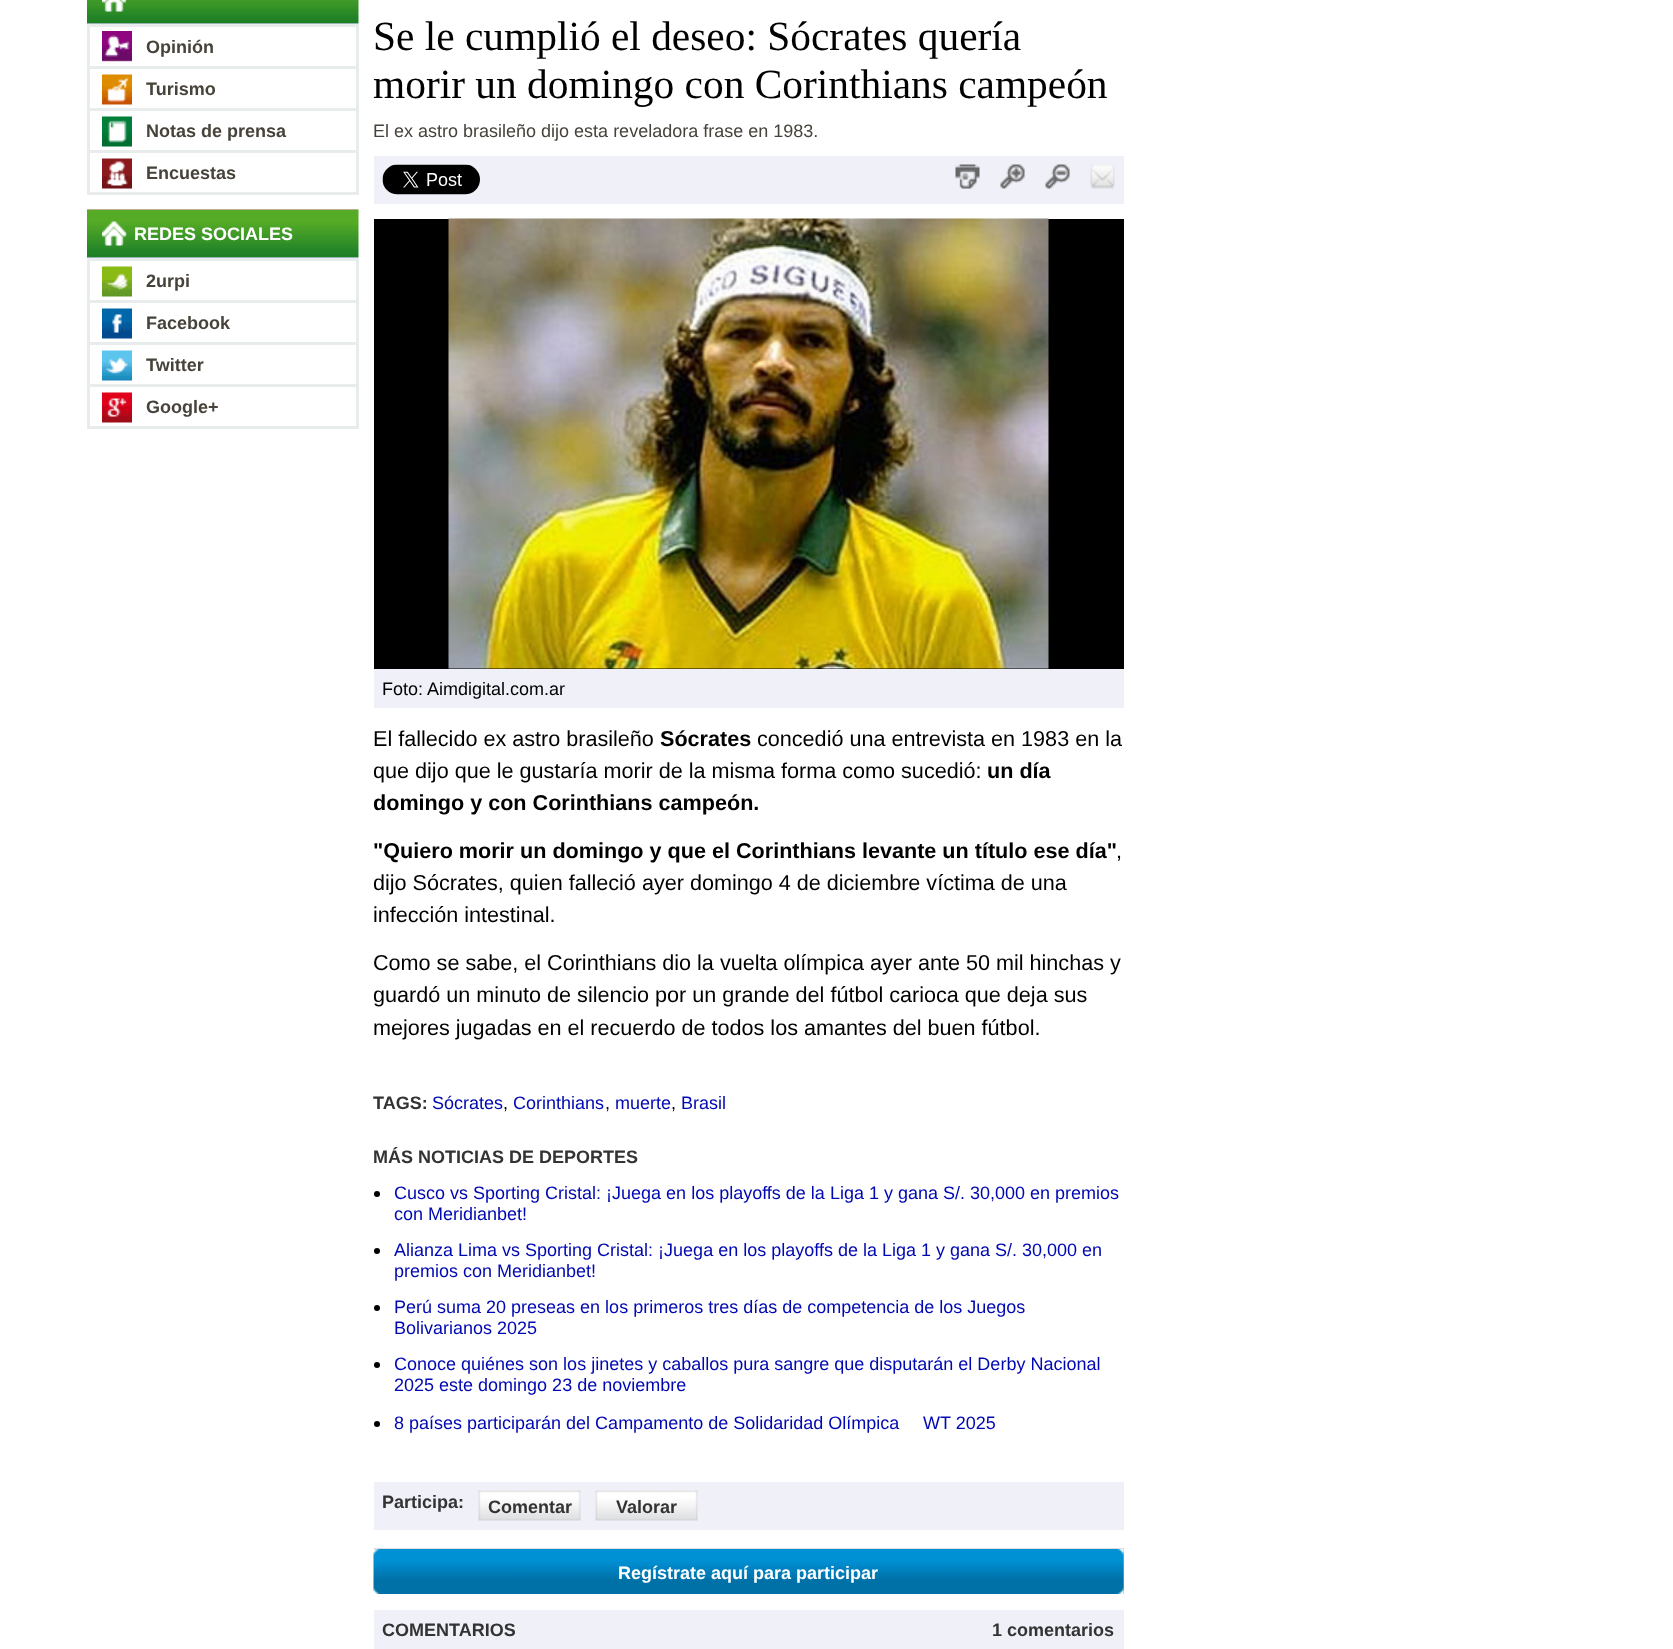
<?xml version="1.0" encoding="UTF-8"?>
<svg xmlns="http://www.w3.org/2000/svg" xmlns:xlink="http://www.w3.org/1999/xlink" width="1673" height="1649">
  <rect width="100%" height="100%" fill="#ffffff" />
  <image x="87" y="0" width="272" height="24" xlink:href="image1.png" />
  <image x="102" y="0" width="25" height="12" xlink:href="image2.png" />
  <rect x="87" y="24" width="272" height="3" fill="#e9eced" />
  <rect x="356" y="24" width="3" height="171" fill="#e9eced" />
  <rect x="87" y="24" width="3" height="171" fill="#e9eced" />
  <image x="102" y="31" width="30" height="31" xlink:href="image3.png" />
  <rect x="90" y="66" width="266" height="3" fill="#e9eced" />
  <image x="102" y="74" width="30" height="31" xlink:href="image4.png" />
  <rect x="90" y="108" width="266" height="3" fill="#e9eced" />
  <image x="102" y="116" width="30" height="31" xlink:href="image5.png" />
  <rect x="90" y="150" width="266" height="3" fill="#e9eced" />
  <image x="102" y="158" width="30" height="31" xlink:href="image6.png" />
  <rect x="90" y="192" width="266" height="3" fill="#e9eced" />
  <image x="87" y="209" width="272" height="49" xlink:href="image7.png" />
  <image x="102" y="221" width="25" height="25" xlink:href="image8.png" />
  <rect x="87" y="258" width="272" height="3" fill="#e9eced" />
  <rect x="356" y="258" width="3" height="171" fill="#e9eced" />
  <rect x="87" y="258" width="3" height="171" fill="#e9eced" />
  <image x="102" y="266" width="30" height="31" xlink:href="image9.png" />
  <rect x="90" y="300" width="266" height="3" fill="#e9eced" />
  <image x="102" y="308" width="30" height="31" xlink:href="image10.png" />
  <rect x="90" y="342" width="266" height="3" fill="#e9eced" />
  <image x="102" y="350" width="30" height="31" xlink:href="image11.png" />
  <rect x="90" y="384" width="266" height="3" fill="#e9eced" />
  <image x="102" y="392" width="30" height="31" xlink:href="image12.png" />
  <rect x="90" y="426" width="266" height="3" fill="#e9eced" />
  <rect x="374" y="156" width="750" height="48" fill="#eff0f8" />
  <image x="382" y="164" width="98" height="31" xlink:href="image13.png" />
  <image x="955" y="164" width="25" height="25" xlink:href="image14.png" />
  <image x="1000" y="164" width="25" height="25" xlink:href="image15.png" />
  <image x="1045" y="164" width="25" height="25" xlink:href="image16.png" />
  <image x="1090" y="164" width="25" height="25" xlink:href="image17.png" />
  <rect x="374" y="219" width="750" height="450" fill="#000000" />
  <image x="448" y="218" width="601" height="451" xlink:href="image18.png" />
  <rect x="374" y="669" width="750" height="39" fill="#eff0f8" />
  <circle cx="377" cy="1194" r="3" fill="#000000" />
  <circle cx="377" cy="1251" r="3" fill="#000000" />
  <circle cx="377" cy="1308" r="3" fill="#000000" />
  <circle cx="377" cy="1365" r="3" fill="#000000" />
  <circle cx="377" cy="1424" r="3" fill="#000000" />
  <rect x="374" y="1548" width="750" height="2" fill="#dddddd" />
  <rect x="374" y="1482" width="750" height="48" fill="#eff0f8" />
  <image x="478" y="1490" width="103" height="31" xlink:href="image19.png" />
  <image x="595" y="1490" width="103" height="31" xlink:href="image20.png" />
  <image x="373" y="1549" width="751" height="45" xlink:href="image21.png" />
  <image x="1117" y="1549" width="7" height="45" xlink:href="image22.png" />
  <rect x="374" y="1610" width="750" height="39" fill="#eff0f8" />
  <text x="146" y="53" style="font-family: Liberation Sans; font-size: 18px; font-weight: bold; fill: #47433b">Opinión</text>
  <text x="146" y="95" style="font-family: Liberation Sans; font-size: 18px; font-weight: bold; fill: #47433b">Turismo</text>
  <text x="146" y="137" style="font-family: Liberation Sans; font-size: 18px; font-weight: bold; fill: #47433b">Notas de prensa</text>
  <text x="146" y="179" style="font-family: Liberation Sans; font-size: 18px; font-weight: bold; fill: #47433b">Encuestas</text>
  <text x="134" y="240" style="font-family: Liberation Sans; font-size: 18px; font-weight: bold; fill: #ffffff">REDES SOCIALES</text>
  <text x="146" y="287" style="font-family: Liberation Sans; font-size: 18px; font-weight: bold; fill: #47433b">2urpi</text>
  <text x="146" y="329" style="font-family: Liberation Sans; font-size: 18px; font-weight: bold; fill: #47433b">Facebook</text>
  <text x="146" y="371" style="font-family: Liberation Sans; font-size: 18px; font-weight: bold; fill: #47433b">Twitter</text>
  <text x="146" y="413" style="font-family: Liberation Sans; font-size: 18px; font-weight: bold; fill: #47433b">Google+</text>
  <text x="373" y="50" style="font-family: Liberation Serif; font-size: 41.4px; fill: #000000">Se le cumplió el deseo: Sócrates quería</text>
  <text x="373" y="98" style="font-family: Liberation Serif; font-size: 41.4px; fill: #000000">morir un domingo con Corinthians campeón</text>
  <text x="373" y="137" style="font-family: Liberation Sans; font-size: 18px; fill: #47433b">El ex astro brasileño dijo esta reveladora frase en 1983.</text>
  <text x="382" y="695" style="font-family: Liberation Sans; font-size: 18px; fill: #000000">Foto: Aimdigital.com.ar</text>
  <text x="373" y="746" style="font-family: Liberation Sans; font-size: 21.6px; fill: #000000">El fallecido ex astro brasileño</text>
  <text x="660" y="746" style="font-family: Liberation Sans; font-size: 21.6px; font-weight: bold; fill: #000000">Sócrates</text>
  <text x="757" y="746" style="font-family: Liberation Sans; font-size: 21.6px; fill: #000000">concedió una entrevista en 1983 en la</text>
  <text x="373" y="778" style="font-family: Liberation Sans; font-size: 21.6px; fill: #000000">que dijo que le gustaría morir de la misma forma como sucedió:</text>
  <text x="987" y="778" style="font-family: Liberation Sans; font-size: 21.6px; font-weight: bold; fill: #000000">un día</text>
  <text x="373" y="810" style="font-family: Liberation Sans; font-size: 21.6px; font-weight: bold; fill: #000000">domingo y con Corinthians campeón.</text>
  <text x="373" y="858" style="font-family: Liberation Sans; font-size: 21.6px; font-weight: bold; fill: #000000">"Quiero morir un domingo y que el Corinthians levante un título ese día"</text>
  <text x="1116" y="858" style="font-family: Liberation Sans; font-size: 21.6px; fill: #000000">,</text>
  <text x="373" y="890" style="font-family: Liberation Sans; font-size: 21.6px; fill: #000000">dijo Sócrates, quien falleció ayer domingo 4 de diciembre víctima de una</text>
  <text x="373" y="922" style="font-family: Liberation Sans; font-size: 21.6px; fill: #000000">infección intestinal.</text>
  <text x="373" y="970" style="font-family: Liberation Sans; font-size: 21.6px; fill: #000000">Como se sabe, el Corinthians dio la vuelta olímpica ayer ante 50 mil hinchas y</text>
  <text x="373" y="1002" style="font-family: Liberation Sans; font-size: 21.6px; fill: #000000">guardó un minuto de silencio por un grande del fútbol carioca que deja sus</text>
  <text x="373" y="1035" style="font-family: Liberation Sans; font-size: 21.6px; fill: #000000">mejores jugadas en el recuerdo de todos los amantes del buen fútbol.</text>
  <text x="373" y="1109" style="font-family: Liberation Sans; font-size: 18px; font-weight: bold; fill: #333333">TAGS:</text>
  <text x="432" y="1109" style="font-family: Liberation Sans; font-size: 18px; fill: #0008b2">Sócrates</text>
  <text x="503" y="1109" style="font-family: Liberation Sans; font-size: 18px; fill: #000000">,</text>
  <text x="513" y="1109" style="font-family: Liberation Sans; font-size: 18px; fill: #0008b2">Corinthians</text>
  <text x="605" y="1109" style="font-family: Liberation Sans; font-size: 18px; fill: #000000">,</text>
  <text x="615" y="1109" style="font-family: Liberation Sans; font-size: 18px; fill: #0008b2">muerte</text>
  <text x="671" y="1109" style="font-family: Liberation Sans; font-size: 18px; fill: #000000">,</text>
  <text x="681" y="1109" style="font-family: Liberation Sans; font-size: 18px; fill: #0008b2">Brasil</text>
  <text x="373" y="1163" style="font-family: Liberation Sans; font-size: 18px; font-weight: bold; fill: #333333">MÁS NOTICIAS DE DEPORTES</text>
  <text x="394" y="1199" style="font-family: Liberation Sans; font-size: 18px; fill: #0008b2">Cusco vs Sporting Cristal: ¡Juega en los playoffs de la Liga 1 y gana S/. 30,000 en premios</text>
  <text x="394" y="1220" style="font-family: Liberation Sans; font-size: 18px; fill: #0008b2">con Meridianbet!</text>
  <text x="394" y="1256" style="font-family: Liberation Sans; font-size: 18px; fill: #0008b2">Alianza Lima vs Sporting Cristal: ¡Juega en los playoffs de la Liga 1 y gana S/. 30,000 en</text>
  <text x="394" y="1277" style="font-family: Liberation Sans; font-size: 18px; fill: #0008b2">premios con Meridianbet!</text>
  <text x="394" y="1313" style="font-family: Liberation Sans; font-size: 18px; fill: #0008b2">Perú suma 20 preseas en los primeros tres días de competencia de los Juegos</text>
  <text x="394" y="1334" style="font-family: Liberation Sans; font-size: 18px; fill: #0008b2">Bolivarianos 2025</text>
  <text x="394" y="1370" style="font-family: Liberation Sans; font-size: 18px; fill: #0008b2">Conoce quiénes son los jinetes y caballos pura sangre que disputarán el Derby Nacional</text>
  <text x="394" y="1391" style="font-family: Liberation Sans; font-size: 18px; fill: #0008b2">2025 este domingo 23 de noviembre</text>
  <text x="394" y="1429" style="font-family: Liberation Sans; font-size: 18px; fill: #0008b2">8 países participarán del Campamento de Solidaridad Olímpica</text>
  <text x="923" y="1429" style="font-family: Liberation Sans; font-size: 18px; fill: #0008b2">WT 2025</text>
  <text x="382" y="1508" style="font-family: Liberation Sans; font-size: 18px; font-weight: bold; fill: #333333">Participa:</text>
  <text x="488" y="1513" style="font-family: Liberation Sans; font-size: 18px; font-weight: bold; fill: #333333">Comentar</text>
  <text x="616" y="1513" style="font-family: Liberation Sans; font-size: 18px; font-weight: bold; fill: #333333">Valorar</text>
  <text x="618" y="1579" style="font-family: Liberation Sans; font-size: 18px; font-weight: bold; fill: #ffffff">Regístrate aquí para participar</text>
  <text x="382" y="1636" style="font-family: Liberation Sans; font-size: 18px; font-weight: bold; fill: #333333">COMENTARIOS</text>
  <text x="992" y="1636" style="font-family: Liberation Sans; font-size: 18px; font-weight: bold; fill: #333333">1 comentarios</text>
</svg>
